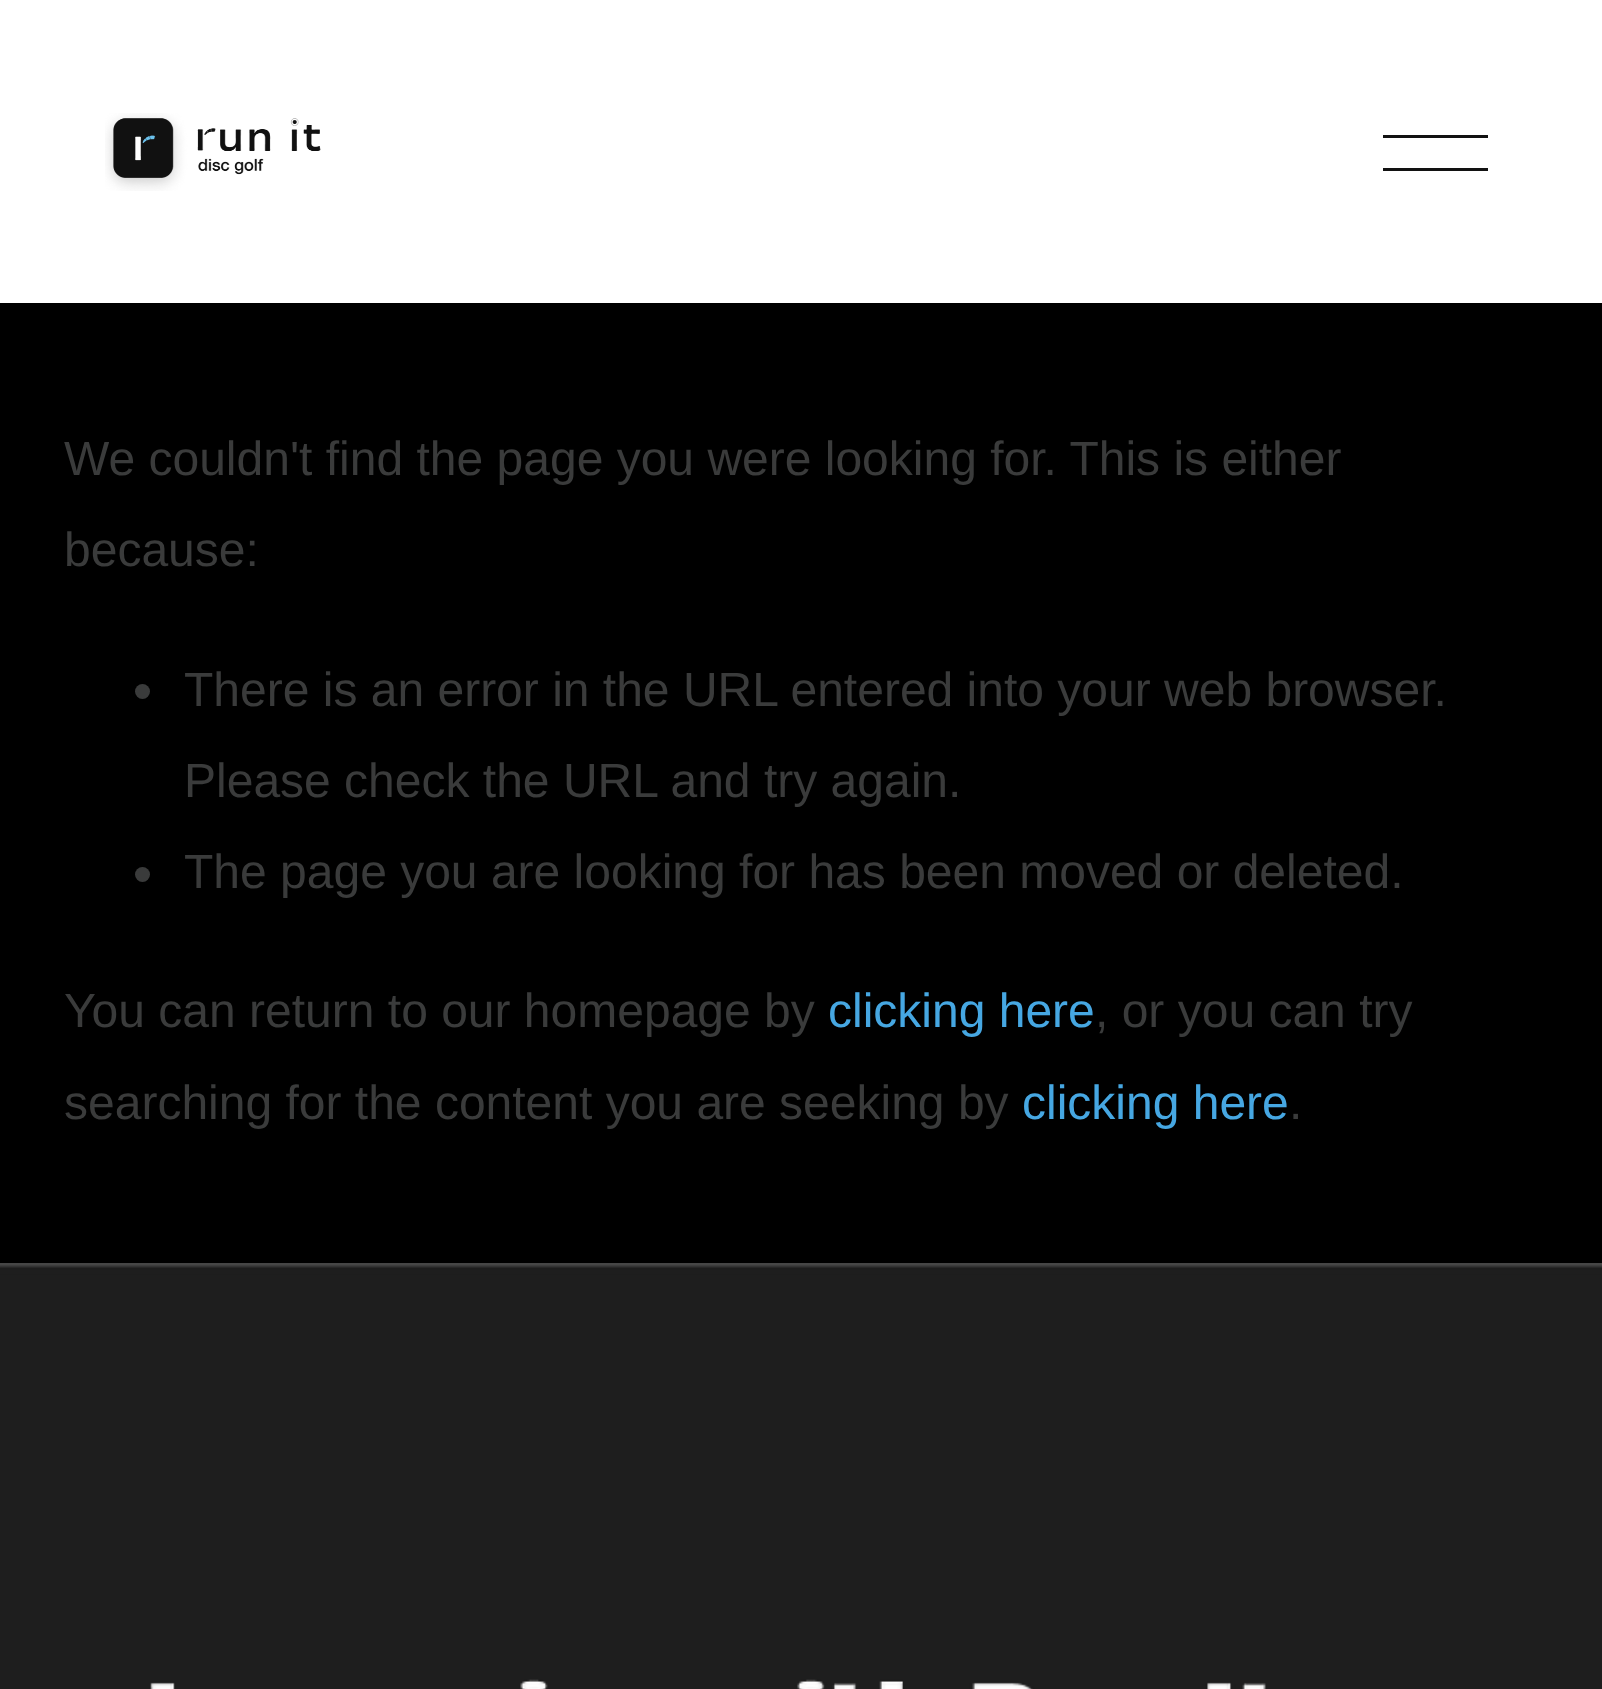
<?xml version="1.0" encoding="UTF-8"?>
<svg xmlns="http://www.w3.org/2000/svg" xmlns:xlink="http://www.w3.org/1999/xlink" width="1602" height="1689">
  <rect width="100%" height="100%" fill="#000000" />
  <rect width="1602" height="303" fill="#ffffff" />
  <image x="105" y="113" width="216" height="78" xlink:href="image1.png" />
  <rect x="1383" y="135" width="105" height="3" fill="#121212" />
  <rect x="1383" y="168" width="105" height="3" fill="#121212" />
  <circle cx="142.5" cy="691.5" r="7.5" fill="#3a3b3b" />
  <circle cx="142.5" cy="874.5" r="7.5" fill="#3a3b3b" />
  <rect y="1263" width="1602" height="11" fill="#666666" />
  <image x="0" y="1263" width="1602" height="426" xlink:href="image2.png" />
  <image x="150" y="1679" width="1116" height="10" xlink:href="image3.png" />
  <text x="64" y="475" style="font-family: Liberation Sans; font-size: 48px; fill: #3a3b3b">We couldn't find the page you were looking for. This is either</text>
  <text x="64" y="566" style="font-family: Liberation Sans; font-size: 48px; fill: #3a3b3b">because:</text>
  <text x="184" y="706" style="font-family: Liberation Sans; font-size: 48px; fill: #3a3b3b">There is an error in the URL entered into your web browser.</text>
  <text x="184" y="797" style="font-family: Liberation Sans; font-size: 48px; fill: #3a3b3b">Please check the URL and try again.</text>
  <text x="184" y="888" style="font-family: Liberation Sans; font-size: 48px; fill: #3a3b3b">The page you are looking for has been moved or deleted.</text>
  <text x="64" y="1027" style="font-family: Liberation Sans; font-size: 48px; fill: #3a3b3b">You can return to our homepage by</text>
  <text x="828" y="1027" style="font-family: Liberation Sans; font-size: 48px; fill: #46a7e2">clicking here</text>
  <text x="1095" y="1027" style="font-family: Liberation Sans; font-size: 48px; fill: #3a3b3b">, or you can try</text>
  <text x="64" y="1119" style="font-family: Liberation Sans; font-size: 48px; fill: #3a3b3b">searching for the content you are seeking by</text>
  <text x="1022" y="1119" style="font-family: Liberation Sans; font-size: 48px; fill: #46a7e2">clicking here</text>
  <text x="1289" y="1119" style="font-family: Liberation Sans; font-size: 48px; fill: #3a3b3b">.</text>
</svg>
